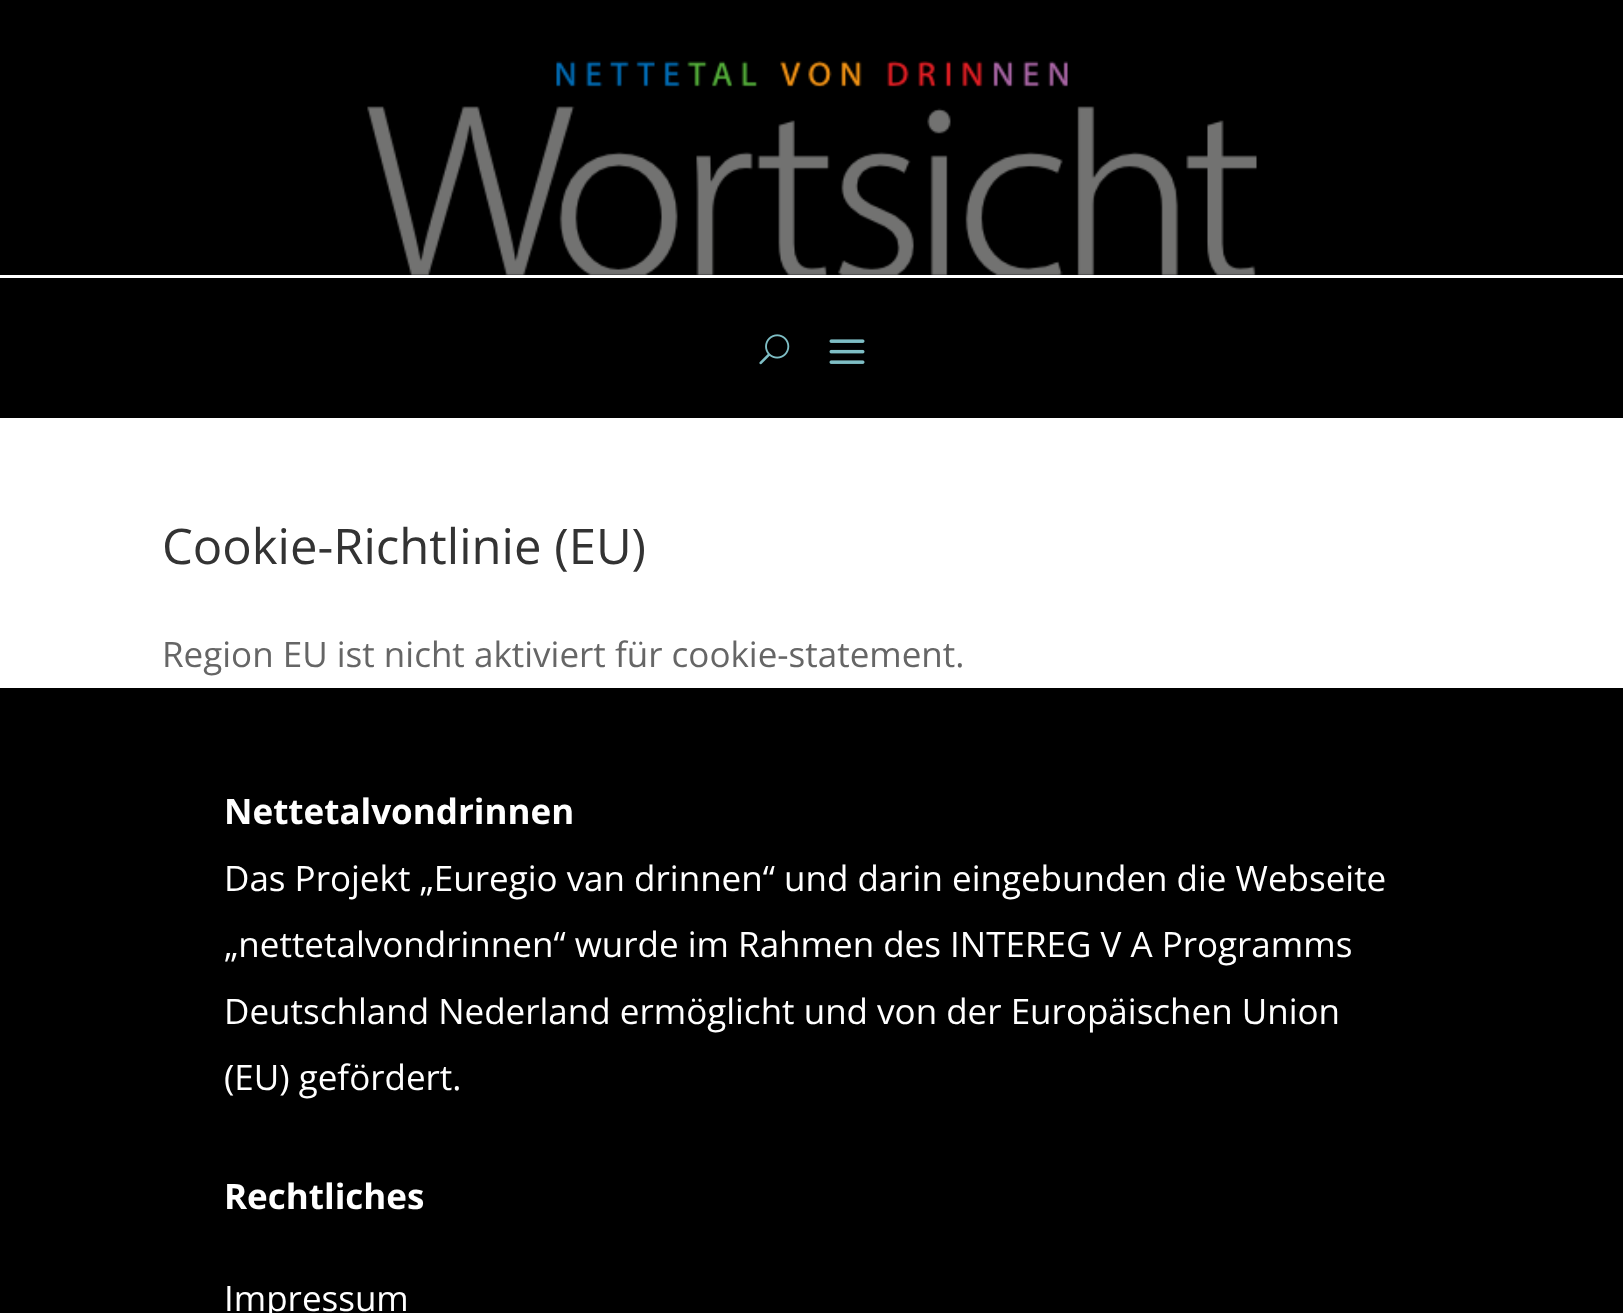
<?xml version="1.0" encoding="UTF-8"?>
<svg xmlns="http://www.w3.org/2000/svg" xmlns:xlink="http://www.w3.org/1999/xlink" width="1623" height="1313">
  <rect width="100%" height="100%" fill="#ffffff" />
  <rect width="1623" height="275" fill="#000000" />
  <image x="367" y="61" width="890" height="214" xlink:href="image1.png" />
  <rect y="278" width="1623" height="140" fill="#000000" />
  <image x="759" y="334" width="31" height="31" xlink:href="image2.png" />
  <image x="829" y="339" width="36" height="25" xlink:href="image3.png" />
  <rect y="688" width="1623" height="625" fill="#000000" />
  <text x="162" y="564" style="font-family: Open Sans; font-size: 49px; fill: #333333">Cookie-Richtlinie (EU)</text>
  <text x="162" y="667" style="font-family: Open Sans; font-size: 35px; fill: #666666">Region EU ist nicht aktiviert für cookie-statement.</text>
  <text x="224" y="824" style="font-family: Open Sans; font-size: 35px; font-weight: bold; fill: #ffffff">Nettetalvondrinnen</text>
  <text x="224" y="891" style="font-family: Open Sans; font-size: 35px; fill: #ffffff">Das Projekt „Euregio van drinnen“ und darin eingebunden die Webseite</text>
  <text x="224" y="957" style="font-family: Open Sans; font-size: 35px; fill: #ffffff">„nettetalvondrinnen“ wurde im Rahmen des INTEREG V A Programms</text>
  <text x="224" y="1024" style="font-family: Open Sans; font-size: 35px; fill: #ffffff">Deutschland Nederland ermöglicht und von der Europäischen Union</text>
  <text x="224" y="1090" style="font-family: Open Sans; font-size: 35px; fill: #ffffff">(EU) gefördert.</text>
  <text x="224" y="1209" style="font-family: Open Sans; font-size: 35px; font-weight: bold; fill: #ffffff">Rechtliches</text>
  <text x="224" y="1311" style="font-family: Open Sans; font-size: 35px; fill: #ffffff">Impressum</text>
</svg>
